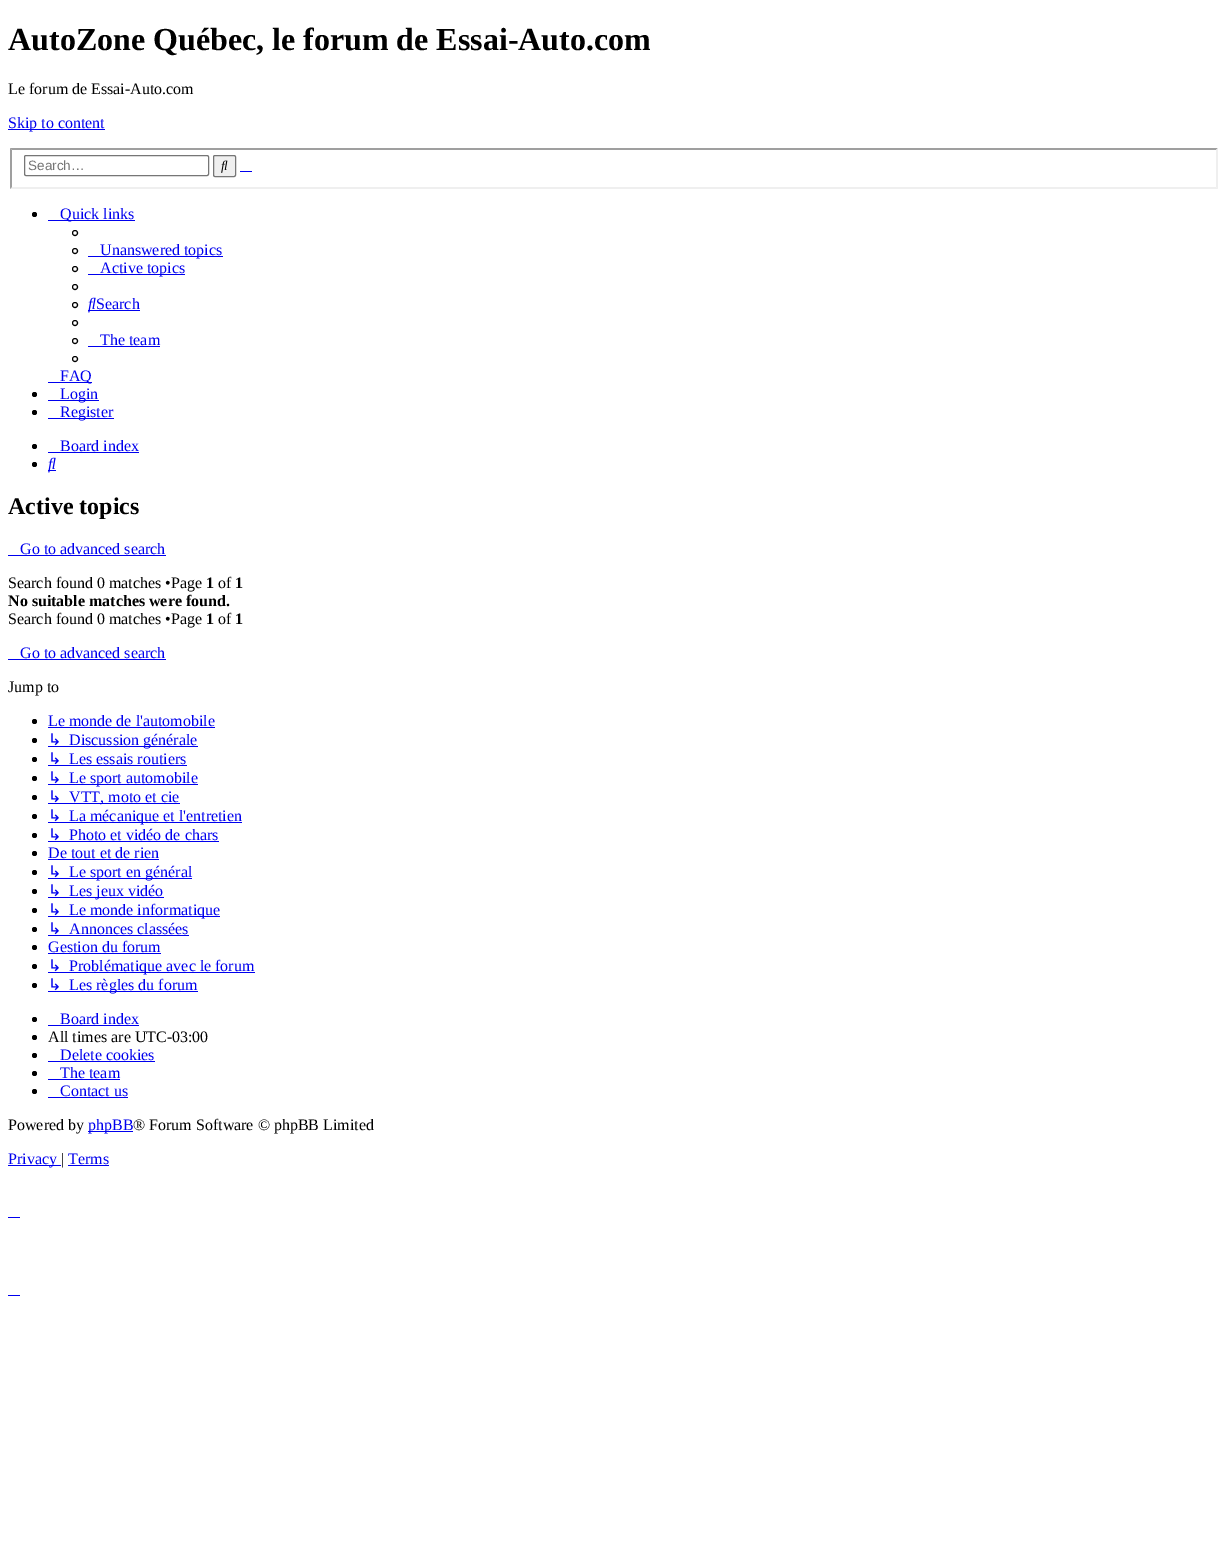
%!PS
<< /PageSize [1228 1553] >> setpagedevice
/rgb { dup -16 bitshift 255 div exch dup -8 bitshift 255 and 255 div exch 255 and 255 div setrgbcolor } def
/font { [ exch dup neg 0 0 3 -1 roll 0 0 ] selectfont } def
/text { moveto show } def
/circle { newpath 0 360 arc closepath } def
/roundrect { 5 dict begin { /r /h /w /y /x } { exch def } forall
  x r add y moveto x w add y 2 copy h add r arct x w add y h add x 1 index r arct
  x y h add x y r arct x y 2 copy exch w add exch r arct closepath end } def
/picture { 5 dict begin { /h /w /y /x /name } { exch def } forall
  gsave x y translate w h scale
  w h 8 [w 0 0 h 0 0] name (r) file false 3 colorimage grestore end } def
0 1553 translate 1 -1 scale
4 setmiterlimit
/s1 { /LiberationSerif-Bold 32 font 16#000000 rgb } def
/s2 { /LiberationSerif-Regular 16 font 16#000000 rgb } def
/s3 { /LiberationSerif-Regular 16 font 16#0000EE rgb } def
/s4 { /LiberationSans-Regular 13.5 font 16#757575 rgb } def
/s5 { /LiberationSerif-Bold 24 font 16#000000 rgb } def
/s6 { /LiberationSerif-Bold 16 font 16#000000 rgb } def
/s7 { /DejaVuSans-Regular 16 font 16#0000EE rgb } def
16#FFFFFF rgb
0 0 1228 1553 rectfill
s1
(AutoZone Québec, le forum de Essai-Auto.com) 8 50 text
s2
(Le forum de Essai-Auto.com) 8 94 text
16#0000EE rgb
8 129 97 1 rectfill
(Skip to content) 8 128 text
16#9F9F9F rgb
10 148 moveto 1218 148 lineto 1216 150 lineto 12 150 lineto closepath fill
16#EFEFEF rgb
1218 148 moveto 1218 189 lineto 1216 187 lineto 1216 150 lineto closepath fill
1218 189 moveto 10 189 lineto 12 187 lineto 1216 187 lineto closepath fill
16#9F9F9F rgb
10 189 moveto 10 148 lineto 12 150 lineto 12 187 lineto closepath fill
16#767676 rgb
24.5 155.5 184 20 1.5 roundrect stroke
s4
(Search…) 28 170 text
16#EFEFEF rgb
213.5 155.5 22 21 1.5 roundrect gsave fill grestore
16#767676 rgb
stroke
(pic1.raw) 221 160 7 13 picture
16#0000EE rgb
240 171 12 1 rectfill
16#000000 rgb
34.5 214.5 2.5 circle fill
16#0000EE rgb
48 220 87 1 rectfill
s3
(Quick links) 60 219 text
16#000000 rgb
75 233 2.5 circle stroke
75 251 2.5 circle stroke
16#0000EE rgb
88 256 135 1 rectfill
(Unanswered topics) 100 255 text
16#000000 rgb
75 269 2.5 circle stroke
16#0000EE rgb
88 274 97 1 rectfill
(Active topics) 100 273 text
16#000000 rgb
75 287 2.5 circle stroke
75 305 2.5 circle stroke
16#0000EE rgb
88 310 52 1 rectfill
(pic2.raw) 88 297 8 16 picture
(Search) 96 309 text
16#000000 rgb
75 323 2.5 circle stroke
75 341 2.5 circle stroke
s3
(The team) 100 345 text
88 346 72 1 rectfill
16#000000 rgb
75 359 2.5 circle stroke
16#0000EE rgb
48 382 44 1 rectfill
(FAQ) 60 381 text
16#000000 rgb
34.5 394.5 2.5 circle fill
16#0000EE rgb
48 400 51 1 rectfill
(Login) 60 399 text
16#000000 rgb
34.5 412.5 2.5 circle fill
16#0000EE rgb
48 418 66 1 rectfill
(Register) 60 417 text
16#000000 rgb
34.5 446.5 2.5 circle fill
s3
(Board index) 60 451 text
48 452 91 1 rectfill
16#000000 rgb
34.5 464.5 2.5 circle fill
16#0000EE rgb
48 470 8 1 rectfill
(pic2.raw) 48 457 8 16 picture
s5
(Active topics) 8 514 text
s3
(Go to advanced search) 20 554 text
8 555 158 1 rectfill
s2
(Search found 0 matches •Page) 8 588 text
s6
(1) 206 588 text
s2
(of) 218 588 text
s6
(1) 235 588 text
(No suitable matches were found.) 8 606 text
s2
(Search found 0 matches •Page) 8 624 text
s6
(1) 206 624 text
s2
(of) 218 624 text
s6
(1) 235 624 text
s3
(Go to advanced search) 20 658 text
8 659 158 1 rectfill
s2
(Jump to) 8 692 text
34.5 721.5 2.5 circle fill
s3
(Le monde de l'automobile) 48 726 text
48 727 167 1 rectfill
16#000000 rgb
34.5 740.5 2.5 circle fill
s7
(↳) 48 745 text
48 746 150 1 rectfill
s3
(Discussion générale) 69 745 text
16#000000 rgb
34.5 759.5 2.5 circle fill
s7
(↳) 48 764 text
s3
(Les essais routiers) 69 764 text
48 765 139 1 rectfill
16#000000 rgb
34.5 778.5 2.5 circle fill
s7
(↳) 48 783 text
48 784 150 1 rectfill
s3
(Le sport automobile) 69 783 text
16#000000 rgb
34.5 797.5 2.5 circle fill
s7
(↳) 48 802 text
48 803 132 1 rectfill
s3
(VTT, moto et cie) 69 802 text
16#000000 rgb
34.5 816.5 2.5 circle fill
s7
(↳) 48 821 text
48 822 194 1 rectfill
s3
(La mécanique et l'entretien) 69 821 text
16#000000 rgb
34.5 835.5 2.5 circle fill
s7
(↳) 48 840 text
48 841 171 1 rectfill
s3
(Photo et vidéo de chars) 69 840 text
16#000000 rgb
34.5 853.5 2.5 circle fill
s3
(De tout et de rien) 48 858 text
48 859 111 1 rectfill
16#000000 rgb
34.5 872.5 2.5 circle fill
s7
(↳) 48 877 text
48 878 144 1 rectfill
s3
(Le sport en général) 69 877 text
16#000000 rgb
34.5 891.5 2.5 circle fill
s7
(↳) 48 896 text
48 897 116 1 rectfill
s3
(Les jeux vidéo) 69 896 text
16#000000 rgb
34.5 910.5 2.5 circle fill
s7
(↳) 48 915 text
48 916 172 1 rectfill
s3
(Le monde informatique) 69 915 text
16#000000 rgb
34.5 929.5 2.5 circle fill
s7
(↳) 48 934 text
48 935 141 1 rectfill
s3
(Annonces classées) 69 934 text
16#000000 rgb
34.5 947.5 2.5 circle fill
s3
(Gestion du forum) 48 952 text
48 953 113 1 rectfill
16#000000 rgb
34.5 966.5 2.5 circle fill
s7
(↳) 48 971 text
48 972 207 1 rectfill
s3
(Problématique avec le forum) 69 971 text
16#000000 rgb
34.5 985.5 2.5 circle fill
s7
(↳) 48 990 text
48 991 150 1 rectfill
s3
(Les règles du forum) 69 990 text
16#000000 rgb
34.5 1019.5 2.5 circle fill
s3
(Board index) 60 1024 text
48 1025 91 1 rectfill
16#000000 rgb
34.5 1037.5 2.5 circle fill
(All times are UTC-03:00) 48 1042 text
34.5 1055.5 2.5 circle fill
s3
(Delete cookies) 60 1060 text
48 1061 107 1 rectfill
16#000000 rgb
34.5 1073.5 2.5 circle fill
s3
(The team) 60 1078 text
48 1079 72 1 rectfill
16#000000 rgb
34.5 1091.5 2.5 circle fill
s3
(Contact us) 60 1096 text
48 1097 80 1 rectfill
s2
(Powered by) 8 1130 text
16#0000EE rgb
88 1131 45 1 rectfill
(phpBB) 88 1130 text
s2
(® Forum Software © phpBB Limited) 133 1130 text
16#0000EE rgb
8 1165 53 1 rectfill
(Privacy) 8 1164 text
s2
(|) 61 1164 text
s3
(Terms) 68 1164 text
68 1165 41 1 rectfill
8 1217 12 1 rectfill
8 1295 12 1 rectfill
showpage
